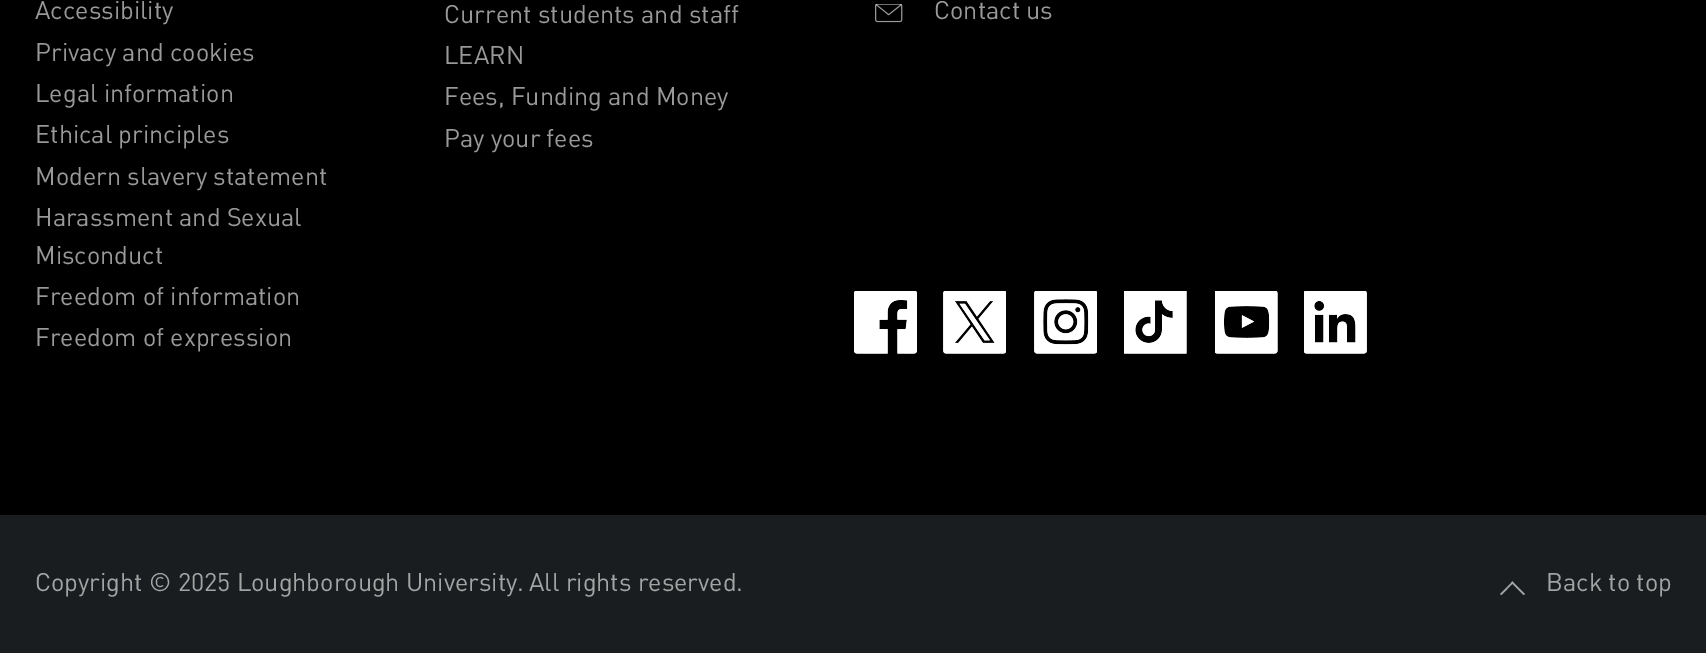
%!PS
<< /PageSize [1706 653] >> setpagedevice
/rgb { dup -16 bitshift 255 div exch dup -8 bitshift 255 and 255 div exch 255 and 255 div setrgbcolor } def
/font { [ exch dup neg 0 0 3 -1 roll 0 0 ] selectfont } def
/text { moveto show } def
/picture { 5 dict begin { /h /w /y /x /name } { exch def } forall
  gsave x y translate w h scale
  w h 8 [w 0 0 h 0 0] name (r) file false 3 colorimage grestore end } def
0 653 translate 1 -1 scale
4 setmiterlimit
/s1 { /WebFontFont-Regular 25.25 font 16#999999 rgb } def
/s2 { /WebFontFont-Regular 25.25 font 16#A3A5A5 rgb } def
16#000000 rgb
0 0 1706 653 rectfill
s1
(Accessibility) 35 19 text
(Privacy and cookies) 35 61 text
(Legal information) 35 102 text
(Ethical principles) 35 143 text
(Modern slavery statement) 35 185 text
(Harassment and Sexual) 35 226 text
(Misconduct) 35 264 text
(Freedom of information) 35 305 text
(Freedom of expression) 35 346 text
(Current students and staff) 444 23 text
(LEARN) 444 64 text
(Fees, Funding and Money) 444 105 text
(Pay your fees) 444 147 text
(pic1.raw) 875 4 28 19 picture
(Contact us) 934 19 text
(pic2.raw) 854 291 63 63 picture
(pic3.raw) 854 291 63 63 picture
(pic4.raw) 943 291 63 63 picture
(pic5.raw) 943 291 63 63 picture
(pic6.raw) 1034 291 63 63 picture
(pic7.raw) 1034 291 63 63 picture
(pic8.raw) 1124 291 63 63 picture
(pic9.raw) 1124 291 63 63 picture
(pic10.raw) 1215 291 63 63 picture
(pic11.raw) 1215 291 63 63 picture
(pic12.raw) 1304 291 63 63 picture
(pic13.raw) 1304 291 63 63 picture
16#191D1F rgb
0 515 1706 138 rectfill
s2
(Copyright © 2025 Loughborough University.) 35 591 text
(All rights reserved.) 529 591 text
1512.5 581.5 moveto 1525 594 lineto 1523.5 595 lineto 1511 582.5 lineto closepath fill
1512.5 581.5 moveto 1513.5 582.5 lineto 1501.5 595 lineto 1500 594 lineto closepath fill
(Back to top) 1546 591 text
showpage
